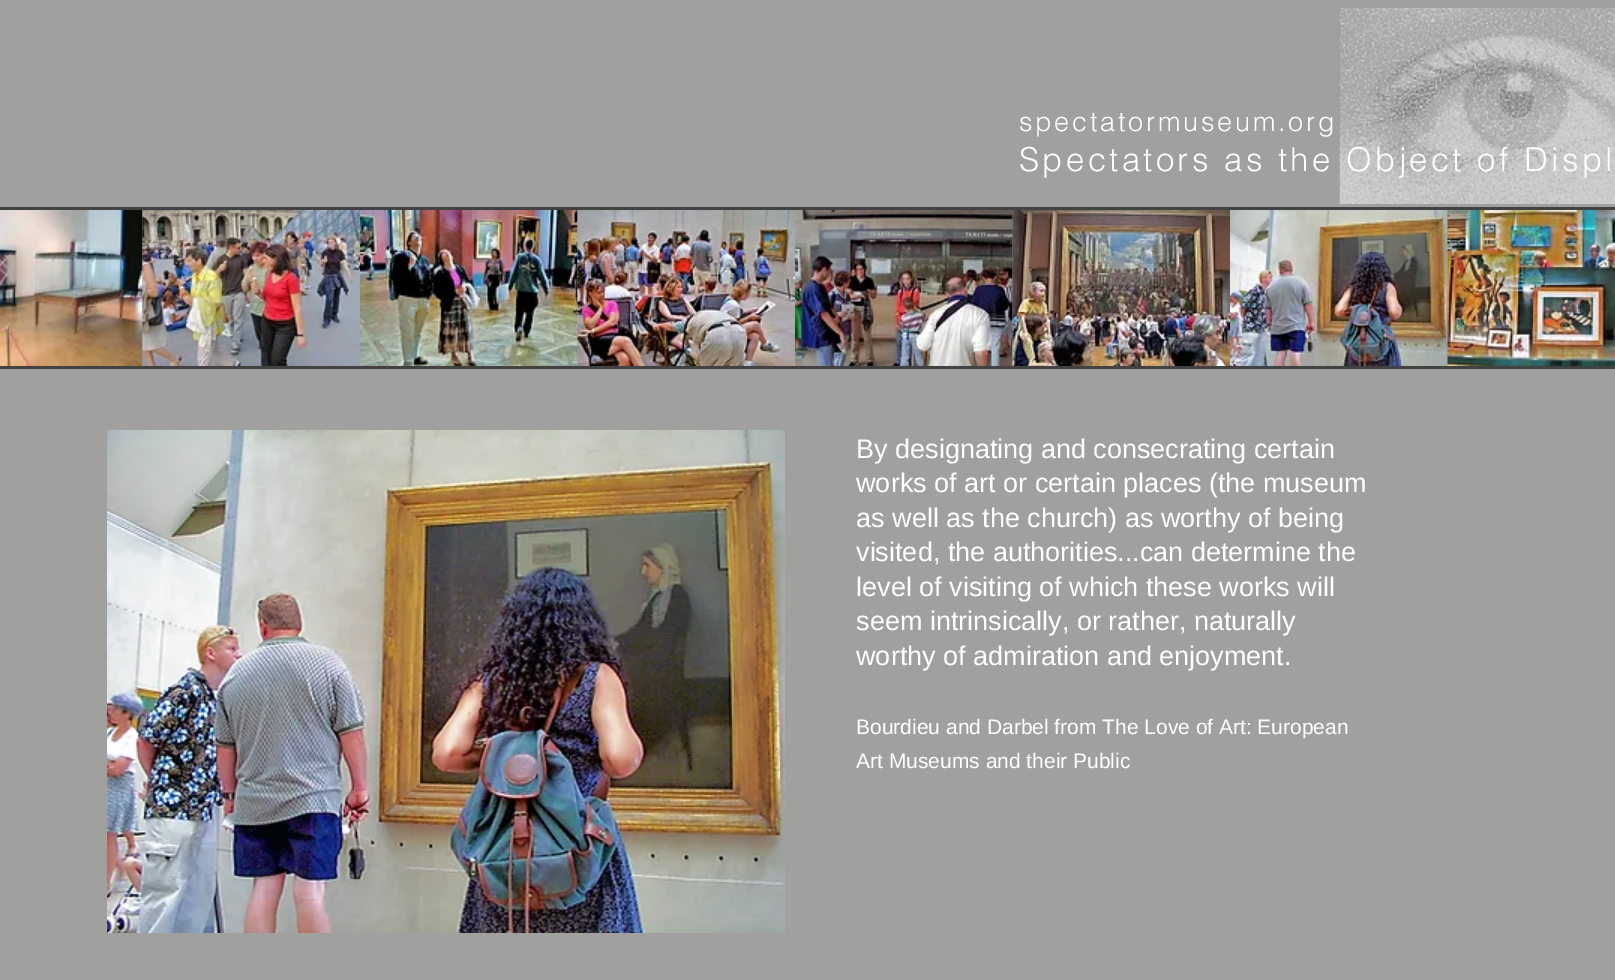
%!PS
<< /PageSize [1615 980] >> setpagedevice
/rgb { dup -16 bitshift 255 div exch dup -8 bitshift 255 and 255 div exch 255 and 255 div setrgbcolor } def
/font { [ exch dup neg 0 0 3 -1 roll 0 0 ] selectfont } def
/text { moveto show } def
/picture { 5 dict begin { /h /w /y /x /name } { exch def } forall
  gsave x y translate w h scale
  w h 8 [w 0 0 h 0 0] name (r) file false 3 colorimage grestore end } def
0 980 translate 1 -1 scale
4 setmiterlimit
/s1 { /LiberationSans-Regular 27 font 16#FFFFFF rgb } def
/s2 { /LiberationSans-Regular 21 font 16#FFFFFF rgb } def
16#A0A09F rgb
0 0 1615 980 rectfill
(pic1.raw) 1339 8 276 196 picture
/helvetica-Light 27 font
16#FFFFFF rgb
1019 131 moveto 2.75 0 (spectatormuseum.org) ashow
/helvetica-Light 33 font
1019 171 moveto 3.3 0 (Spectators as the Object of Displ) ashow
16#424242 rgb
0 207 1615 3 rectfill
(pic2.raw) 0 210 143 156 picture
(pic3.raw) 142 210 218 156 picture
(pic4.raw) 360 210 218 156 picture
(pic5.raw) 577 210 218 156 picture
(pic6.raw) 795 210 218 156 picture
(pic7.raw) 1012 210 218 156 picture
(pic8.raw) 1230 210 218 156 picture
(pic9.raw) 1447 210 168 156 picture
0 366 1615 3 rectfill
(pic10.raw) 107 430 678 503 picture
s1
(By designating and consecrating certain) 856 458 text
(works of art or certain places \(the museum) 856 492 text
(as well as the church\) as worthy of being) 856 527 text
(visited, the authorities...can determine the) 856 561 text
(level of visiting of which these works will) 856 596 text
(seem intrinsically, or rather, naturally) 856 630 text
(worthy of admiration and enjoyment.) 856 665 text
s2
(Bourdieu and Darbel from The Love of Art: European) 856 734 text
(Art Museums and their Public) 856 768 text
showpage
